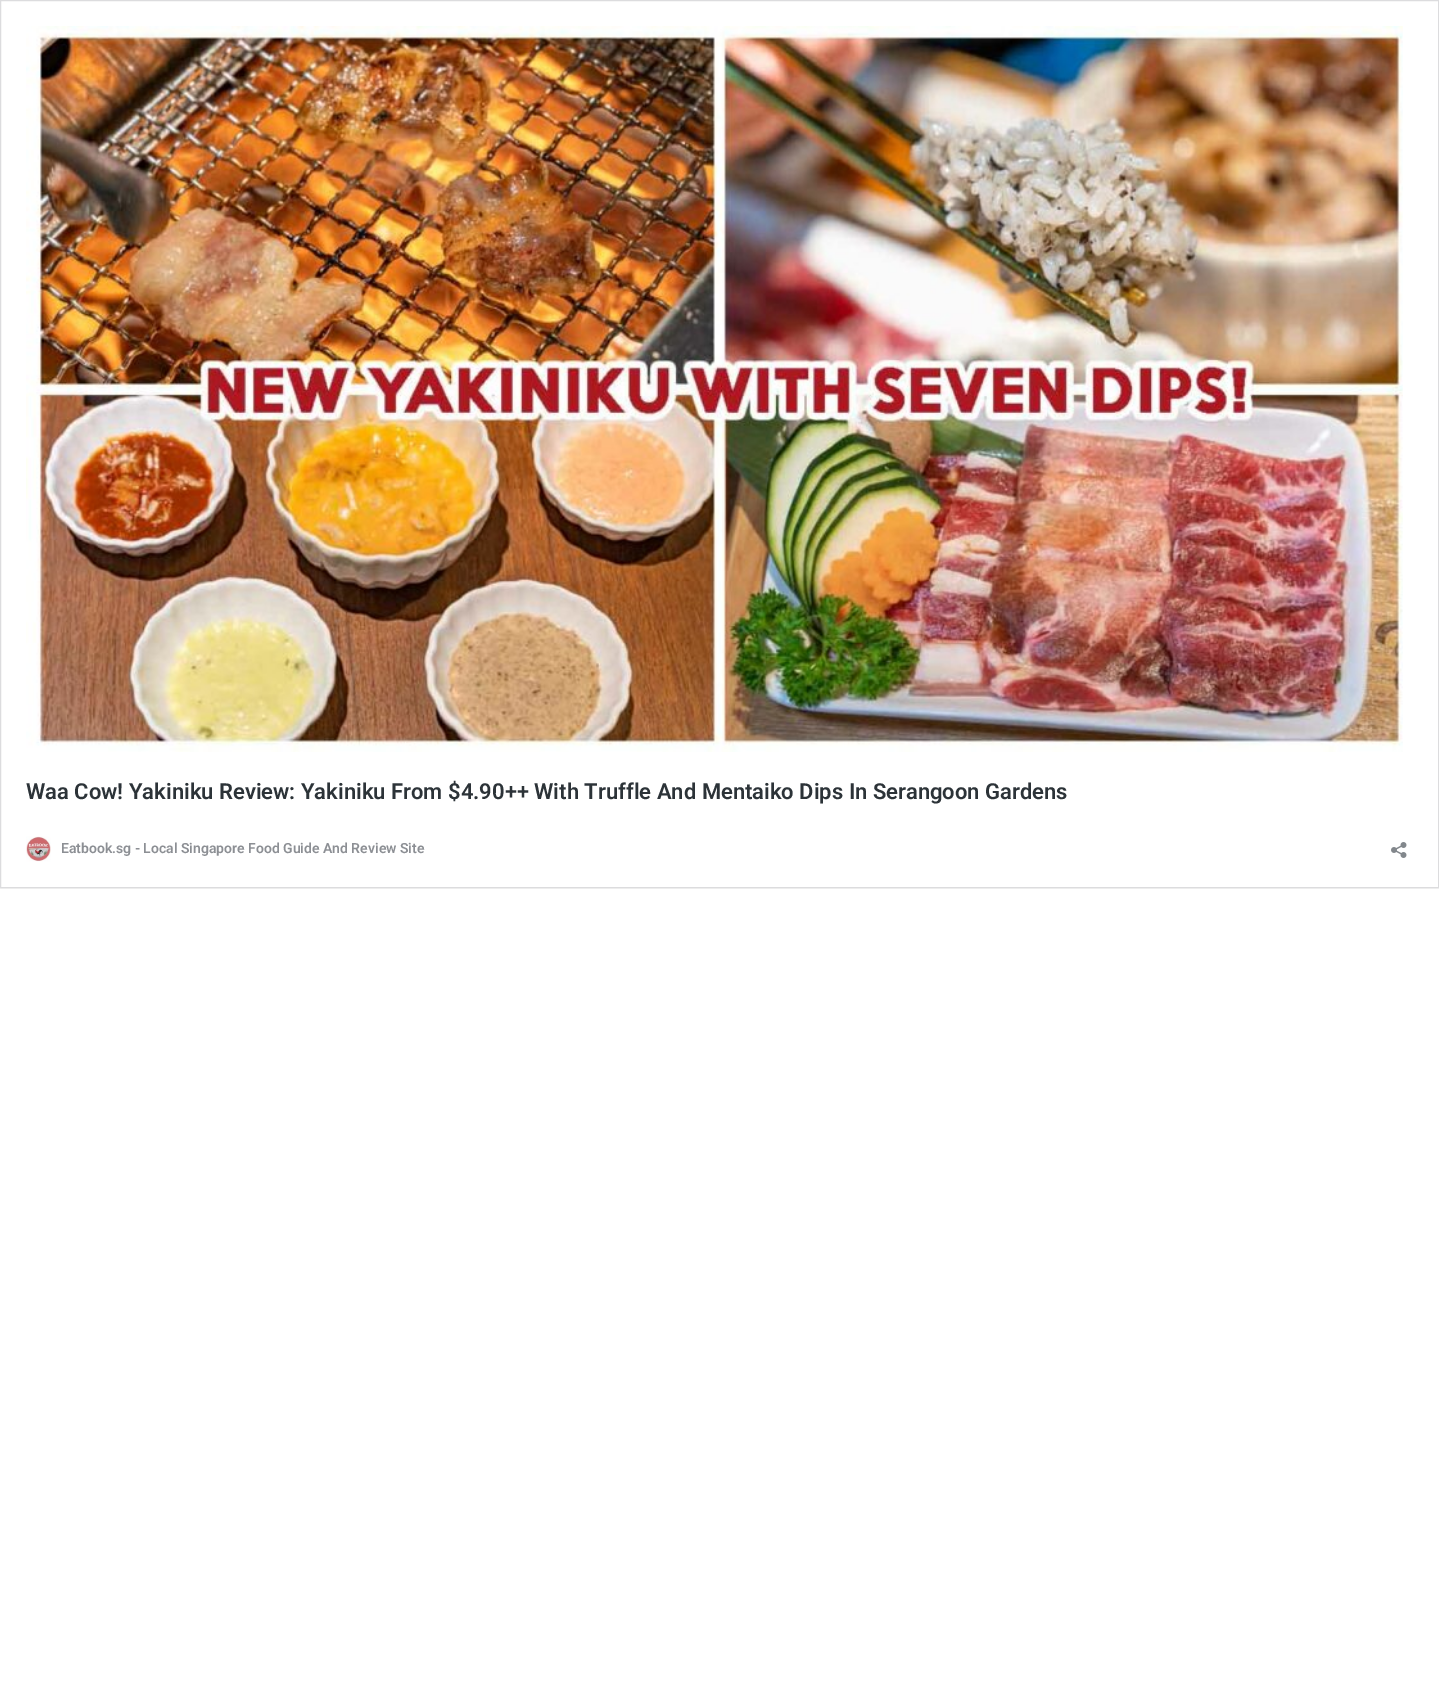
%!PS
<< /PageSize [1439 1703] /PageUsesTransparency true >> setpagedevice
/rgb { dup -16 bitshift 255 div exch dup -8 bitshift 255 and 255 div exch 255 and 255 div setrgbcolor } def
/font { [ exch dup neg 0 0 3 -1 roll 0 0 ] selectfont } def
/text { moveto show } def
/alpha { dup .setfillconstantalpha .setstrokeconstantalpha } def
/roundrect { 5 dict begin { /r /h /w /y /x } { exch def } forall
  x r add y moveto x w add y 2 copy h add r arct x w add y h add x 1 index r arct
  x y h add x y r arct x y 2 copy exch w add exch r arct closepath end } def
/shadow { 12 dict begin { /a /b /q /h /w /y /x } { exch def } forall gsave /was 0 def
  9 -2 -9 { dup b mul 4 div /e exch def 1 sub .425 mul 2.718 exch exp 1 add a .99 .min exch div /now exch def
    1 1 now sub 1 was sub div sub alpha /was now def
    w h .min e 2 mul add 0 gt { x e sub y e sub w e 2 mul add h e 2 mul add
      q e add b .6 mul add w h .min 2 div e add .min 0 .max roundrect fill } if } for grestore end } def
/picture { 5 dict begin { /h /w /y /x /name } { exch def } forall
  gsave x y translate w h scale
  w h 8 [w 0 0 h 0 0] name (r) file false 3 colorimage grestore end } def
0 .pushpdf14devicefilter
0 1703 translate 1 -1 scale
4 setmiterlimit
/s1 { /Roboto-SemiBold 22 font 16#2C3338 rgb } def
/s2 { /Roboto-SemiBold 14 font 16#8C8F94 rgb } def
16#FFFFFF rgb
0 0 1439 1703 rectfill
gsave
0 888 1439 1 rectclip
16#000000 rgb
0 1 1439 888 0 0.5 0.05 shadow
grestore
16#DCDCDE rgb
0.5 0.5 1438 887 rectstroke
(pic1.raw) 26 26 1377 726 picture
s1
(Waa Cow! Yakiniku Review: Yakiniku From $4.90++ With Truffle And Mentaiko Dips In Serangoon Gardens) 26 799 text
(pic2.raw) 26 836 25 26 picture
s2
(Eatbook.sg - Local Singapore Food Guide And Review Site) 61 853 text
(pic3.raw) 1391 842 16 16 picture
.poppdf14devicefilter showpage
